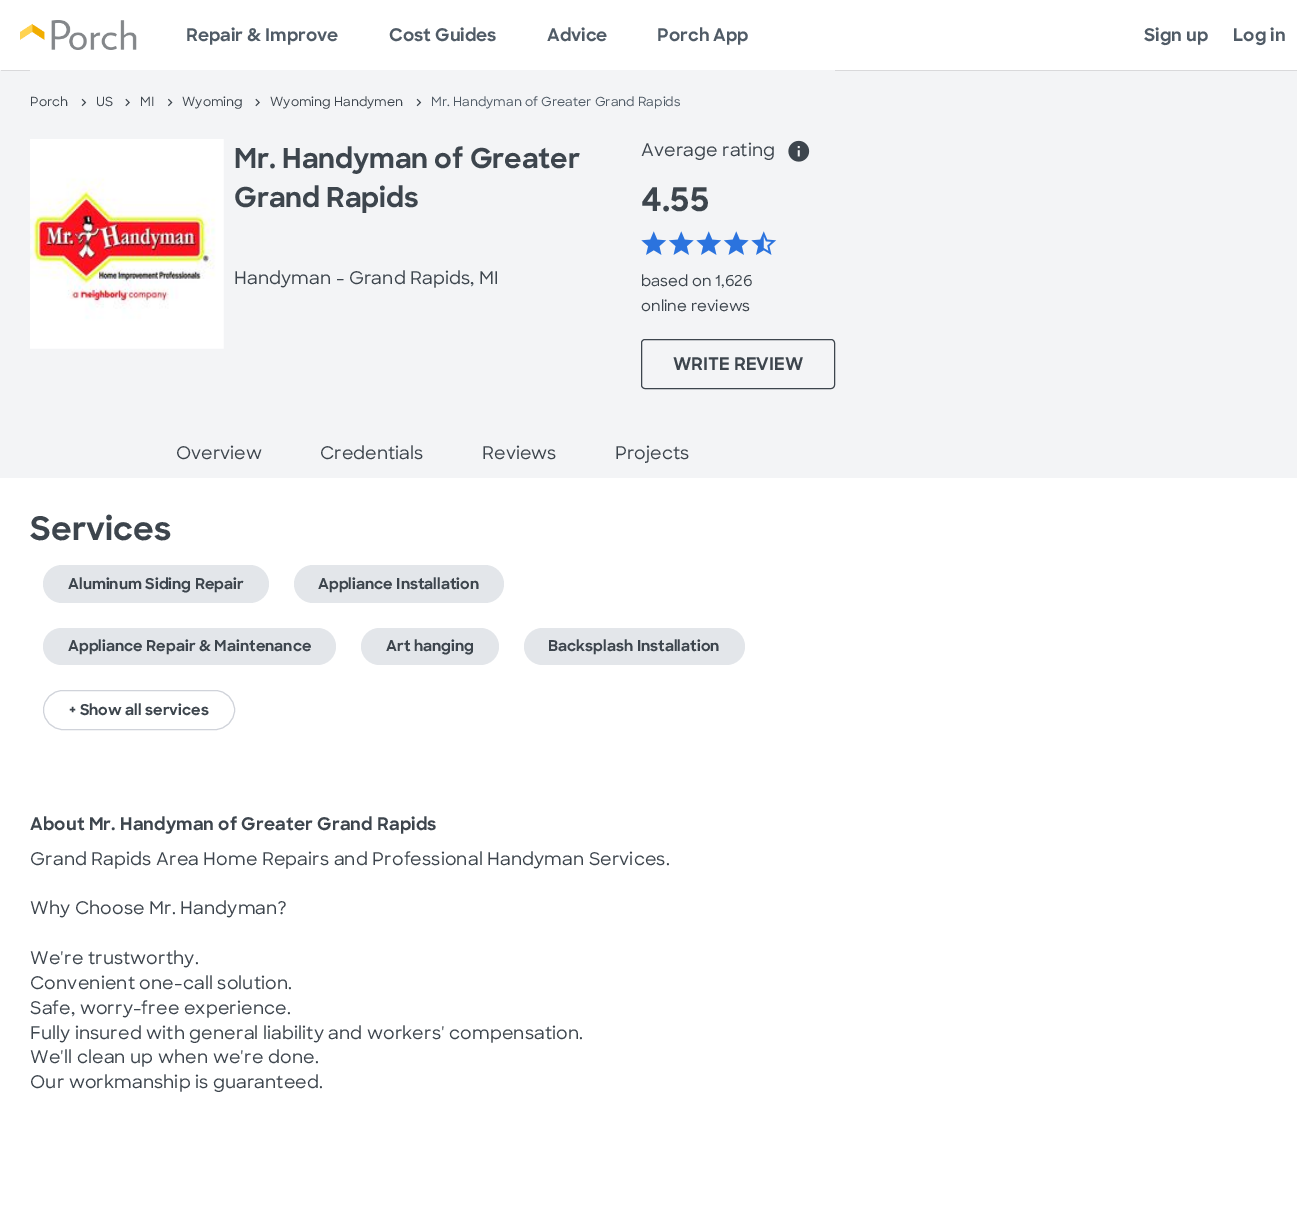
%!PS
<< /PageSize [1297 1228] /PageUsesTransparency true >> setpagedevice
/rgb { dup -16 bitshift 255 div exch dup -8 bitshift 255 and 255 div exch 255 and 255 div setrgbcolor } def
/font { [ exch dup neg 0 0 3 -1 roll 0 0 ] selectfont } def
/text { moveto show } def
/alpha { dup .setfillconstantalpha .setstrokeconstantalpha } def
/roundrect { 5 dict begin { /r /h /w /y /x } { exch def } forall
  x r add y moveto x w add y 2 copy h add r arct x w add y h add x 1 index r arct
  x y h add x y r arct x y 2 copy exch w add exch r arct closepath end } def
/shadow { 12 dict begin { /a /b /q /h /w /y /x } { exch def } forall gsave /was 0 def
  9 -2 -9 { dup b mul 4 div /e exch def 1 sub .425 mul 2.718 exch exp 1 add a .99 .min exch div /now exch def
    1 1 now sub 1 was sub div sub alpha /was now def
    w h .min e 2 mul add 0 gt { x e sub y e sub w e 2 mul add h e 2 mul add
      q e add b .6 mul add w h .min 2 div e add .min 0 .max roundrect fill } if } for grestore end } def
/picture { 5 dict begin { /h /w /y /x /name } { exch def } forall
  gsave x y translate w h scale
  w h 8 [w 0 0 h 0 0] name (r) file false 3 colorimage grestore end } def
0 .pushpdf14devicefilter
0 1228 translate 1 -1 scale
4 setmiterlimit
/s1 { /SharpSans-Bold 17.5 font 16#505B66 rgb } def
/s2 { /SharpSans-Medium 12.5 font 16#3D454D rgb } def
/s3 { /SharpSans-Medium 12.5 font 16#505B66 rgb } def
/s4 { /SharpSans-Medium 15 font 16#3D454D rgb } def
/s5 { /SharpSans-Bold 17.5 font 16#3D454D rgb } def
/s6 { /SharpSans-Medium 17.5 font 16#3D454D rgb } def
/s7 { /SharpSans-Bold 15 font 16#3D454D rgb } def
16#FFFFFF rgb
0 0 1297 1228 rectfill
16#F3F4F6 rgb
0 70 1297 408 rectfill
gsave
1 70 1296 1 rectclip
16#000000 rgb
1 0 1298 70 0 0.5 0.4 shadow
grestore
(pic1.raw) 20 20 117 30 picture
s1
(Repair & Improve) 186 41 text
(Cost Guides) 389 41 text
(Advice) 547 41 text
(Porch App) 657 41 text
(Sign up) 1144 41 text
(Log in) 1233 41 text
16#F3F4F6 rgb
30 70 805 1 rectfill
s2
(Porch) 30 106 text
(pic2.raw) 81 98 6 9 picture
(US) 96 106 text
(pic3.raw) 125 98 5 9 picture
(MI) 140 106 text
(pic4.raw) 168 98 5 9 picture
(Wyoming) 182 106 text
(pic3.raw) 255 98 5 9 picture
(Wyoming Handymen) 270 106 text
(pic2.raw) 416 98 6 9 picture
s3
(Mr. Handyman of Greater Grand Rapids) 431 106 text
(pic5.raw) 30 139 194 210 picture
/SharpSans-Bold 27.5 font
16#3D454D rgb
234 168 moveto -0.1 0 (Mr. Handyman of Greater) ashow
234 207 moveto -0.1 0 (Grand Rapids) ashow
/SharpSans-Medium 17.5 font
234 284 moveto 0.12 0 (Handyman - Grand Rapids, MI) ashow
641 156 moveto 0.12 0 (Average rating) ashow
(pic6.raw) 788 140 22 22 picture
/SharpSans-Bold 32.5 font
641 211 moveto 0.12 0 (4.55) ashow
(pic7.raw) 641 231 26 24 picture
(pic8.raw) 668 231 26 24 picture
(pic7.raw) 696 231 26 24 picture
(pic8.raw) 723 231 26 24 picture
(pic9.raw) 751 231 26 24 picture
s4
(based on 1,626) 641 286 text
(online reviews) 641 311 text
641.5 339.5 193 49 3.5 roundrect stroke
s5
(WRITE REVIEW) 673 370 text
s6
(Overview) 176 459 text
(Credentials) 320 459 text
(Reviews) 482 459 text
(Projects) 615 459 text
/SharpSans-Bold 32.5 font
30 540 moveto 0.12 0 (Services) ashow
16#E3E6EA rgb
43 565 226 38 19 roundrect fill
s7
(Aluminum Siding Repair) 68 589 text
16#E3E6EA rgb
294 565 210 38 19 roundrect fill
s7
(Appliance Installation) 318 589 text
16#E3E6EA rgb
43 628 293 37 18.5 roundrect fill
s7
(Appliance Repair & Maintenance) 68 651 text
16#E3E6EA rgb
361 628 138 37 18.5 roundrect fill
s7
(Art hanging) 386 651 text
16#E3E6EA rgb
524 628 221 37 18.5 roundrect fill
s7
(Backsplash Installation) 548 651 text
16#D0D3DA rgb
43.5 690.5 191 39 19.5 roundrect stroke
s7
(+ Show all services) 69 715 text
/SharpSans-Bold 17.5 font
30 830 moveto 0.12 0 (About Mr. Handyman of Greater Grand Rapids) ashow
/SharpSans-Medium 17.5 font
30 865 moveto 0.12 0 (Grand Rapids Area Home Repairs and Professional Handyman Services.) ashow
30 914 moveto 0.12 0 (Why Choose Mr. Handyman?) ashow
30 964 moveto 0.12 0 (We're trustworthy.) ashow
30 989 moveto 0.12 0 (Convenient one-call solution.) ashow
30 1014 moveto 0.12 0 (Safe, worry-free experience.) ashow
30 1039 moveto 0.12 0 (Fully insured with general liability and workers' compensation.) ashow
30 1063 moveto 0.12 0 (We'll clean up when we're done.) ashow
30 1088 moveto 0.12 0 (Our workmanship is guaranteed.) ashow
.poppdf14devicefilter showpage
